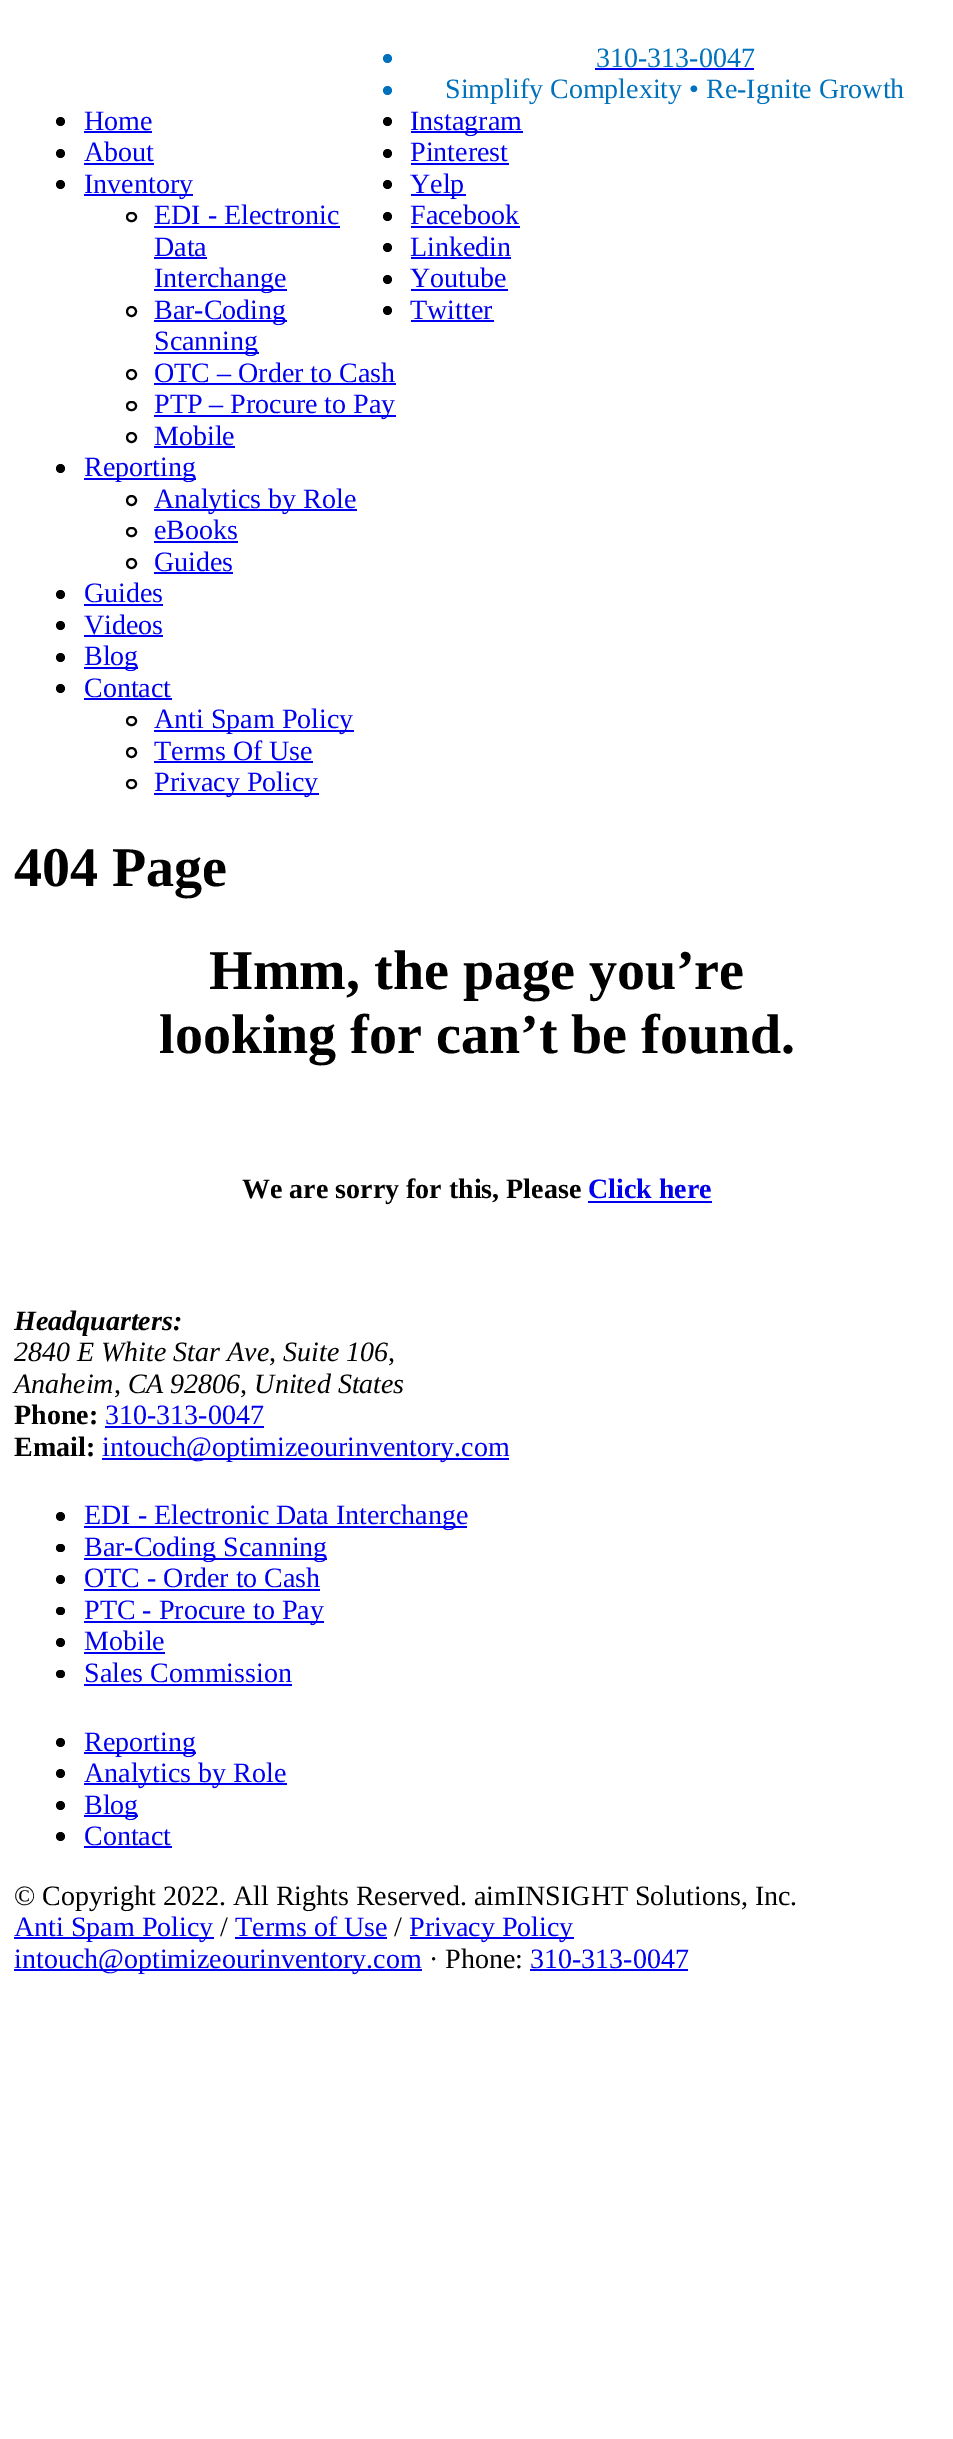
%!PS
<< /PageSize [953 2439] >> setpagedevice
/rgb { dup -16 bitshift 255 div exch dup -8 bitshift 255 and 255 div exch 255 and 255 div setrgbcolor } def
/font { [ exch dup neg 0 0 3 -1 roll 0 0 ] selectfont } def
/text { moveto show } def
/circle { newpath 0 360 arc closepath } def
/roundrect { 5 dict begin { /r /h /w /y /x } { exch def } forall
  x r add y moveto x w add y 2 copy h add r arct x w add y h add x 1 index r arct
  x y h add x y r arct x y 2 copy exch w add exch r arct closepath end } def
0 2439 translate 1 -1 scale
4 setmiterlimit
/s1 { /LiberationSerif-Regular 28 font 16#0000EE rgb } def
/s2 { /LiberationSerif-Regular 28 font 16#0071BC rgb } def
/s3 { /LiberationSerif-Bold 56 font 16#000000 rgb } def
/s4 { /LiberationSerif-Bold 28 font 16#000000 rgb } def
/s5 { /LiberationSerif-Bold 28 font 16#0000EE rgb } def
/s6 { /LiberationSerif-BoldItalic 28 font 16#000000 rgb } def
/s7 { /LiberationSerif-Italic 28 font 16#000000 rgb } def
/s8 { /LiberationSerif-Regular 28 font 16#000000 rgb } def
16#FFFFFF rgb
0 0 953 2439 rectfill
16#000000 rgb
60.5 121.5 4.5 circle fill
s1
(Home) 84 130 text
84 131 68 2 rectfill
16#000000 rgb
60.5 153.5 4.5 circle fill
s1
(About) 84 161 text
84 163 70 2 rectfill
16#000000 rgb
60.5 184.5 4.5 circle fill
16#0000EE rgb
84 194 109 2 rectfill
(Inventory) 84 193 text
16#000000 rgb
2 setlinewidth
127 213 9 8 4 roundrect stroke
s1
(EDI - Electronic) 154 224 text
154 226 186 2 rectfill
(Data) 154 256 text
154 257 53 2 rectfill
154 289 133 2 rectfill
(Interchange) 154 287 text
16#000000 rgb
131.5 311.5 4.5 circle stroke
16#0000EE rgb
154 320 133 2 rectfill
(Bar-Coding) 154 319 text
154 352 105 2 rectfill
(Scanning) 154 350 text
16#000000 rgb
131.5 374.5 4.5 circle stroke
s1
(OTC – Order to Cash) 154 382 text
154 383 242 2 rectfill
16#000000 rgb
127 402 9 8 4 roundrect stroke
16#0000EE rgb
154 415 242 2 rectfill
(PTP – Procure to Pay) 154 413 text
16#000000 rgb
131.5 437.5 4.5 circle stroke
s1
(Mobile) 154 445 text
154 446 81 2 rectfill
16#000000 rgb
60.5 468.5 4.5 circle fill
16#0000EE rgb
84 478 112 2 rectfill
(Reporting) 84 476 text
16#000000 rgb
131.5 500.5 4.5 circle stroke
16#0000EE rgb
154 509 203 2 rectfill
(Analytics by Role) 154 508 text
16#000000 rgb
127 528 9 8 4 roundrect stroke
s1
(eBooks) 154 539 text
154 541 84 2 rectfill
16#000000 rgb
131.5 563.5 4.5 circle stroke
s1
(Guides) 154 571 text
154 572 79 2 rectfill
16#000000 rgb
60.5 594.5 4.5 circle fill
s1
(Guides) 84 602 text
84 604 79 2 rectfill
16#000000 rgb
60.5 625.5 4.5 circle fill
s1
(Videos) 84 634 text
84 635 79 2 rectfill
16#000000 rgb
60.5 657.5 4.5 circle fill
16#0000EE rgb
84 667 54 2 rectfill
(Blog) 84 665 text
16#000000 rgb
60.5 688.5 4.5 circle fill
s1
(Contact) 84 697 text
84 698 88 2 rectfill
16#000000 rgb
127 717 9 8 4 roundrect stroke
16#0000EE rgb
154 730 200 2 rectfill
(Anti Spam Policy) 154 728 text
16#000000 rgb
131.5 752.5 4.5 circle stroke
s1
(Terms Of Use) 154 760 text
154 761 159 2 rectfill
16#000000 rgb
127 780 9 8 4 roundrect stroke
16#0000EE rgb
154 793 165 2 rectfill
(Privacy Policy) 154 791 text
16#0071BC rgb
387.5 58.5 4.5 circle fill
(310-313-0047) 596 67 text
16#0000EE rgb
595 68 159 2 rectfill
16#0071BC rgb
387.5 90.5 4.5 circle fill
(Simplify Complexity • Re-Ignite Growth) 445 98 text
16#000000 rgb
387.5 121.5 4.5 circle fill
16#0000EE rgb
411 131 112 2 rectfill
(Instagram) 410 130 text
16#000000 rgb
387.5 153.5 4.5 circle fill
s1
(Pinterest) 410 161 text
411 163 98 2 rectfill
16#000000 rgb
387.5 184.5 4.5 circle fill
16#0000EE rgb
411 194 55 2 rectfill
(Yelp) 410 193 text
16#000000 rgb
387.5 216.5 4.5 circle fill
s1
(Facebook) 410 224 text
411 226 109 2 rectfill
16#000000 rgb
387.5 247.5 4.5 circle fill
s1
(Linkedin) 410 256 text
411 257 100 2 rectfill
16#000000 rgb
387.5 279.5 4.5 circle fill
s1
(Youtube) 410 287 text
411 289 97 2 rectfill
16#000000 rgb
387.5 310.5 4.5 circle fill
s1
(Twitter) 410 319 text
411 320 83 2 rectfill
s3
(404 Page) 14 886 text
(Hmm, the page you’re) 209 989 text
(looking for can’t be found.) 159 1053 text
s4
(We are sorry for this, Please) 242 1198 text
s5
(Click here) 588 1198 text
588 1201 124 2 rectfill
s6
(Headquarters:) 14 1330 text
s7
(2840 E White Star Ave, Suite 106,) 14 1361 text
(Anaheim, CA 92806, United States) 14 1393 text
s4
(Phone:) 14 1424 text
s1
(310-313-0047) 105 1424 text
105 1426 159 2 rectfill
s4
(Email:) 14 1456 text
16#0000EE rgb
102 1458 407 2 rectfill
s1
(intouch@optimizeourinventory.com) 102 1456 text
16#000000 rgb
60.5 1516.5 4.5 circle fill
16#0000EE rgb
84 1526 383 2 rectfill
(EDI - Electronic Data Interchange) 84 1524 text
16#000000 rgb
56 1544 9 8 4 roundrect fill
16#0000EE rgb
84 1558 243 2 rectfill
(Bar-Coding Scanning) 84 1556 text
16#000000 rgb
60.5 1579.5 4.5 circle fill
s1
(OTC - Order to Cash) 84 1587 text
84 1589 236 2 rectfill
16#000000 rgb
56 1607 9 8 4 roundrect fill
16#0000EE rgb
84 1621 240 2 rectfill
(PTC - Procure to Pay) 84 1619 text
16#000000 rgb
60.5 1642.5 4.5 circle fill
s1
(Mobile) 84 1650 text
84 1652 81 2 rectfill
16#000000 rgb
56 1670 9 8 4 roundrect fill
s1
(Sales Commission) 84 1682 text
84 1684 208 2 rectfill
16#000000 rgb
60.5 1742.5 4.5 circle fill
16#0000EE rgb
84 1752 112 2 rectfill
(Reporting) 84 1751 text
16#000000 rgb
60.5 1773.5 4.5 circle fill
16#0000EE rgb
84 1783 203 2 rectfill
(Analytics by Role) 84 1782 text
16#000000 rgb
60.5 1805.5 4.5 circle fill
16#0000EE rgb
84 1815 54 2 rectfill
(Blog) 84 1814 text
16#000000 rgb
60.5 1836.5 4.5 circle fill
s1
(Contact) 84 1845 text
84 1846 88 2 rectfill
s8
(© Copyright 2022. All Rights Reserved. aimINSIGHT Solutions, Inc.) 14 1905 text
16#0000EE rgb
14 1937 200 2 rectfill
(Anti Spam Policy) 14 1936 text
s8
(/) 220 1936 text
s1
(Terms of Use) 235 1936 text
235 1937 152 2 rectfill
s8
(/) 394 1936 text
16#0000EE rgb
410 1937 164 2 rectfill
(Privacy Policy) 409 1936 text
14 1969 408 2 rectfill
(intouch@optimizeourinventory.com) 14 1968 text
s8
(· Phone:) 429 1968 text
s1
(310-313-0047) 530 1968 text
530 1969 158 2 rectfill
showpage
